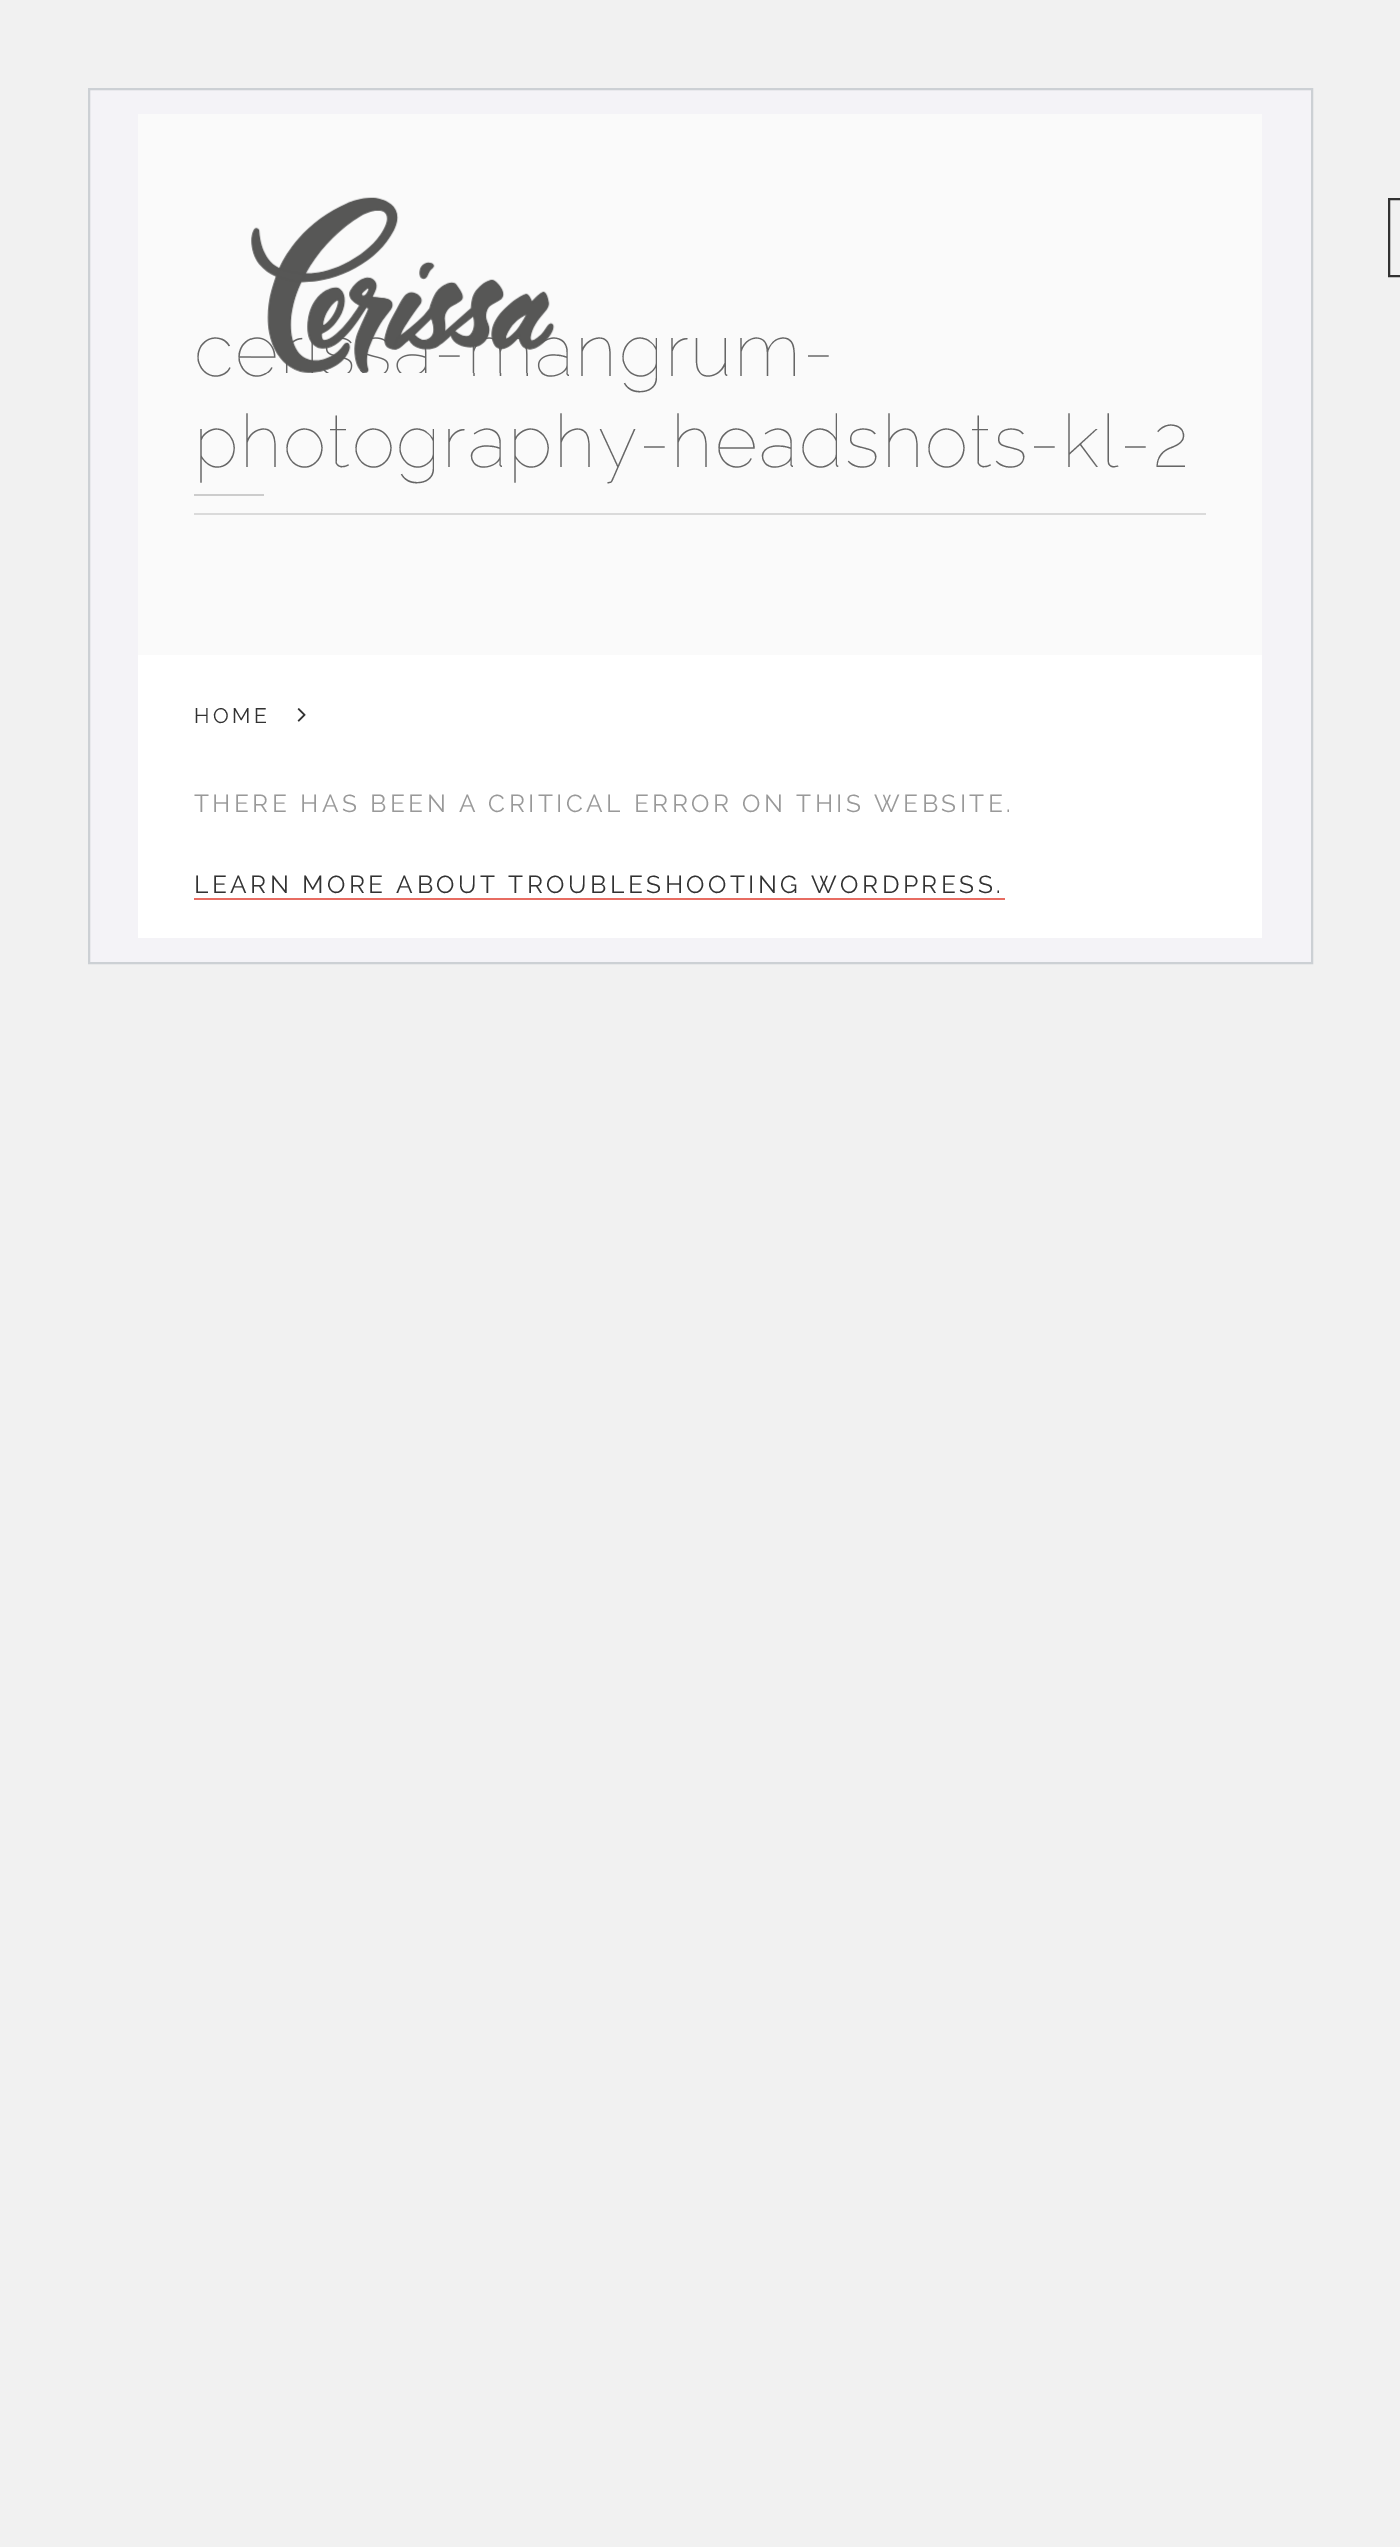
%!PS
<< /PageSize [1400 2547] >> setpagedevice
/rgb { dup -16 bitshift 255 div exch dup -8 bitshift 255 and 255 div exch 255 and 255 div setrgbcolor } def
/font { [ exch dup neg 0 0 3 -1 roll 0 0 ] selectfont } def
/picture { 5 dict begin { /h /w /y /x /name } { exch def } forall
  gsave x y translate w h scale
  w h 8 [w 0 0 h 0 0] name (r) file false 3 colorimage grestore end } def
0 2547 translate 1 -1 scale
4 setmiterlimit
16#F1F1F1 rgb
0 0 1400 2547 rectfill
16#F4F3F7 rgb
89 89 moveto 1312 89 lineto 1312 963 lineto 89 963 lineto closepath gsave fill grestore
16#CCD0D4 rgb
2 setlinewidth
stroke
16#FFFFFF rgb
138 655 1124 283 rectfill
16#FAFAFA rgb
138 114 1124 541 rectfill
/Raleway-Thin 73.5 font
16#666666 rgb
194 376 moveto 1.75 0 (ce) ashow
434 376 moveto 1.75 0 (-mangrum-) ashow
(pic1.raw) 251 197 304 176 picture
16#323232 rgb
1389 199 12 77 rectstroke
16#DADADA rgb
194 513 1012 2 rectfill
16#666666 rgb
194 467 moveto 1.75 0 (photography-headshots-kl-2) ashow
16#CCCCCC rgb
194 494 70 2 rectfill
/Raleway-Regular 21 font
16#323232 rgb
194 723 moveto 3.5 0 (HOME) ashow
(pic2.raw) 297 708 9 14 picture
/Raleway-Regular 24.5 font
16#999999 rgb
194 812 moveto 3.5 0 (THERE HAS BEEN A CRITICAL ERROR ON THIS WEBSITE.) ashow
16#323232 rgb
194 893 moveto 3.5 0 (LEARN MORE ABOUT TROUBLESHOOTING WORDPRESS.) ashow
16#E76C62 rgb
194 898 811 2 rectfill
showpage
